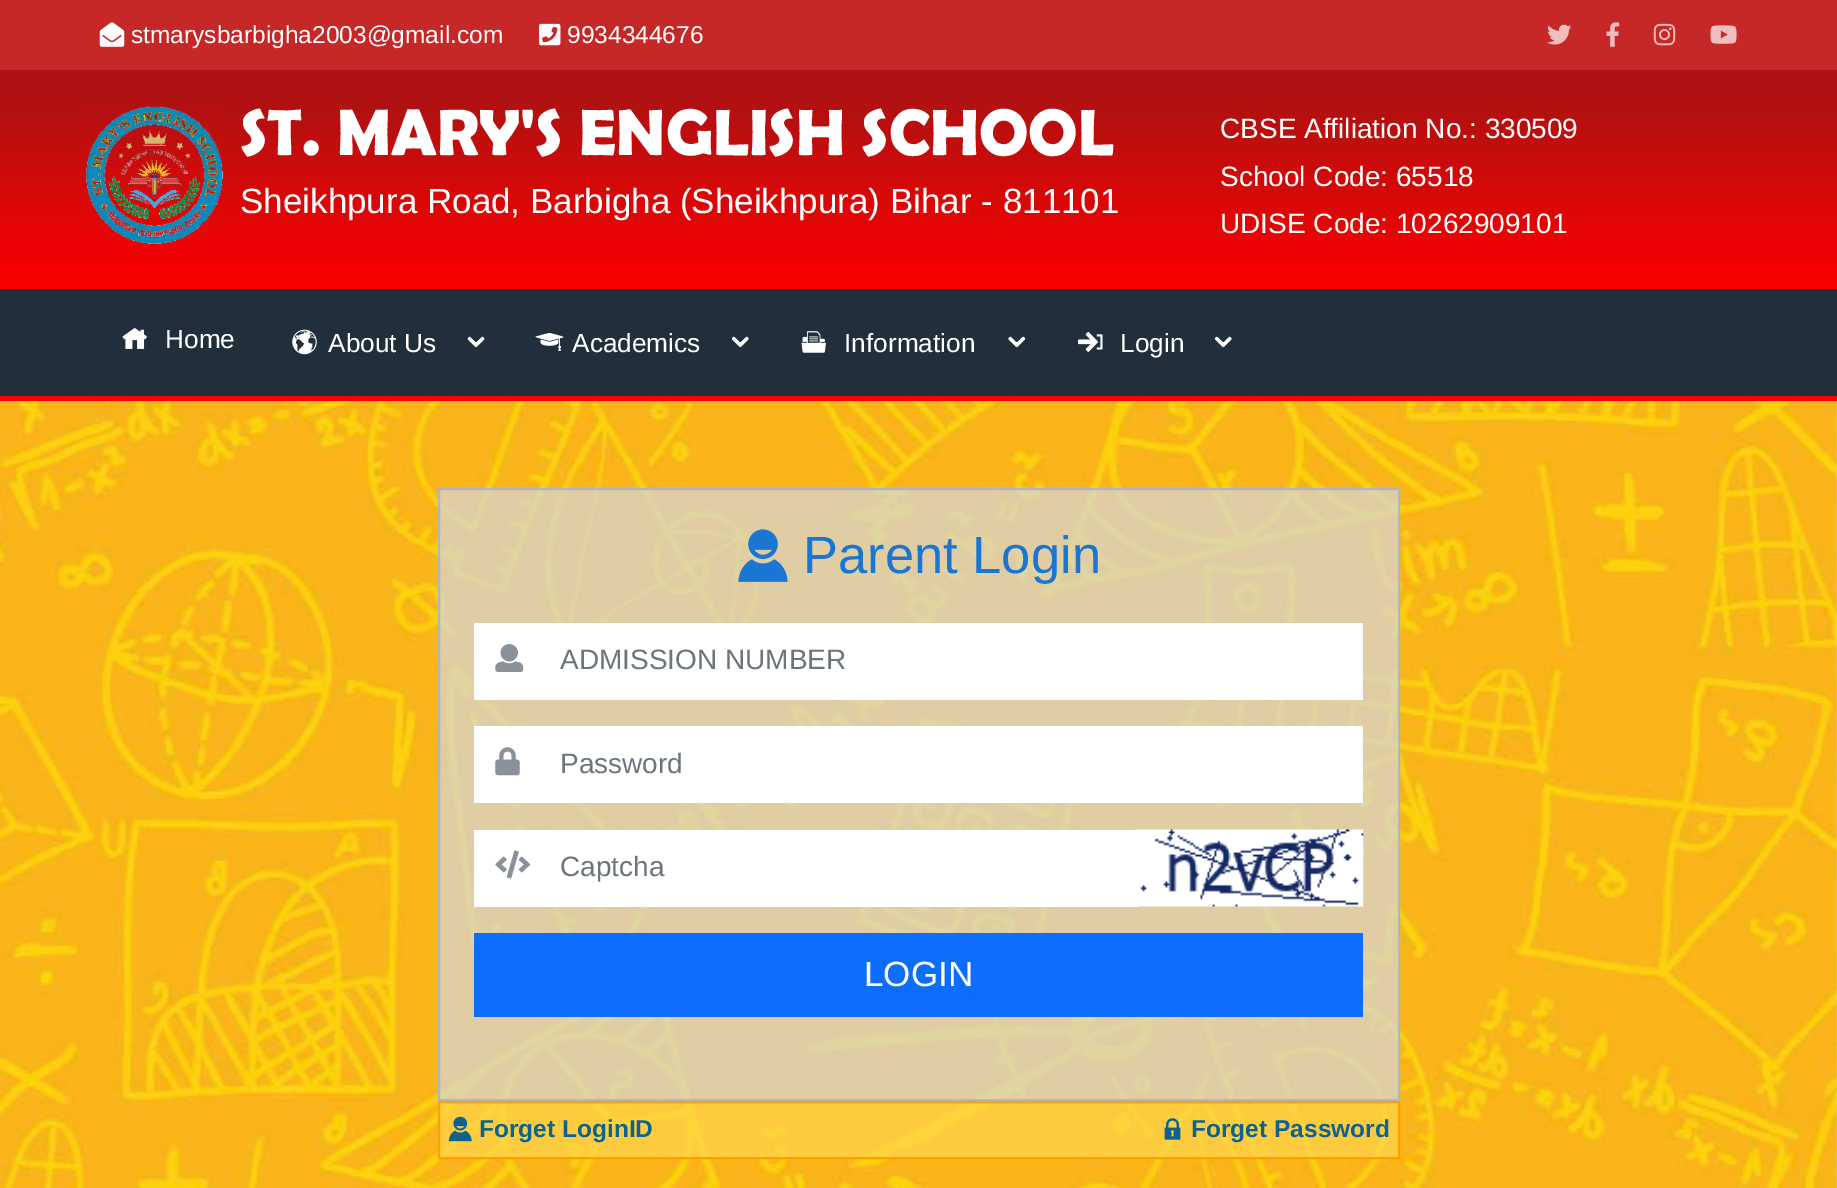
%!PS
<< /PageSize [1837 1188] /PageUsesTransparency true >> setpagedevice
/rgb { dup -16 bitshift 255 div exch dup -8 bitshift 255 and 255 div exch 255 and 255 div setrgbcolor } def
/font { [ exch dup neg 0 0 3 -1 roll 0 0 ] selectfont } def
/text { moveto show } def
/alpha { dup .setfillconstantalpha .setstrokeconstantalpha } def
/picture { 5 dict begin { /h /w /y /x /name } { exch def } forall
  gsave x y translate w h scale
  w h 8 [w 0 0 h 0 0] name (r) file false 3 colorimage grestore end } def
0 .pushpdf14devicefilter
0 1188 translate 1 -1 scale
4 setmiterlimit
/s1 { /LiberationSans-Regular 24.5 font 16#FFFFFF rgb } def
/s2 { /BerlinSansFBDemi-SemiBold 66 font 16#FFFFFF rgb } def
/s3 { /LiberationSans-Regular 35 font 16#FFFFFF rgb } def
/s4 { /LiberationSans-Regular 28 font 16#FFFFFF rgb } def
/s5 { /LiberationSans-Regular 26.25 font 16#FFFFFF rgb } def
/s6 { /LiberationSans-Regular 52.5 font 16#1976D2 rgb } def
/s7 { /LiberationSans-Regular 28 font 16#6C757D rgb } def
/s8 { /LiberationSans-Bold 24.5 font 16#0D638F rgb } def
16#FFFFFF rgb
0 0 1837 1188 rectfill
16#C62828 rgb
0 0 1837 70 rectfill
(pic1.raw) 99 22 26 25 picture
s1
(stmarysbarbigha2003@gmail.com) 131 43 text
(pic2.raw) 539 23 22 23 picture
(9934344676) 567 43 text
(pic3.raw) 1547 24 25 21 picture
(pic4.raw) 1606 22 14 25 picture
(pic5.raw) 1653 23 23 23 picture
(pic6.raw) 1710 25 27 19 picture
gsave 0 70 moveto 1837 70 lineto 1837 289 lineto 0 289 lineto closepath clip newpath
<< /ShadingType 2 /ColorSpace /DeviceRGB /Coords [919 289 919 70] /Extend [true true] /Function << /FunctionType 3 /Domain [0 1] /Functions [<< /FunctionType 2 /Domain [0 1] /C0 [0.984 0 0] /C1 [0.984 0 0] /N 1 >> << /FunctionType 2 /Domain [0 1] /C0 [0.984 0 0] /C1 [0.686 0.071 0.071] /N 1 >> << /FunctionType 2 /Domain [0 1] /C0 [0.686 0.071 0.071] /C1 [0.686 0.071 0.071] /N 1 >>] /Bounds [0.02 0.88] /Encode [0 1 0 1 0 1] >> >> shfill grestore
(pic7.raw) 86 106 137 138 picture
s2
(ST. MARY'S ENGLISH SCHOOL) 240 155 text
s3
(Sheikhpura Road, Barbigha \(Sheikhpura\) Bihar - 811101) 240 213 text
s4
(CBSE Affiliation No.: 330509) 1220 138 text
(School Code: 65518) 1220 186 text
(UDISE Code: 10262909101) 1220 233 text
16#212F3D rgb
0 289 1837 107 rectfill
16#FF0000 rgb
0 396 1837 5 rectfill
(pic8.raw) 122 328 25 21 picture
s5
(Home) 165 348 text
(pic9.raw) 292 329 25 26 picture
(About Us) 328 352 text
(pic10.raw) 467 336 18 12 picture
(pic11.raw) 535 333 29 18 picture
(Academics) 572 352 text
(pic12.raw) 731 336 18 12 picture
(pic13.raw) 801 331 25 22 picture
(Information) 844 352 text
(pic14.raw) 1008 336 18 12 picture
(pic15.raw) 1078 332 25 20 picture
(Login) 1120 352 text
(pic12.raw) 1214 336 18 12 picture
(pic16.raw) 0 401 1837 787 picture
0.7 alpha
16#D5D7DE rgb
439 489 moveto 1399 489 lineto 1399 1100 lineto 439 1100 lineto closepath fill
1 alpha
16#B0B6BE rgb
2 setlinewidth
439 489 moveto 1399 489 lineto 1399 1100 lineto 439 1100 lineto closepath stroke
(pic17.raw) 738 529 50 53 picture
s6
(Parent Login) 803 573 text
16#FFFFFF rgb
474 623 889 77 rectfill
(pic18.raw) 495 644 29 28 picture
s7
(ADMISSION NUMBER) 560 669 text
16#FFFFFF rgb
474 726 889 77 rectfill
(pic19.raw) 495 747 25 29 picture
s7
(Password) 560 773 text
16#FFFFFF rgb
474 830 69 77 rectfill
(pic20.raw) 495 850 36 29 picture
(pic21.raw) 1135 829 229 78 picture
543 830 595 77 rectfill
s7
(Captcha) 560 876 text
16#0D6EFD rgb
474 933 889 84 rectfill
s3
(LOGIN) 864 986 text
0.7 alpha
16#FFD54F rgb
439 1102 moveto 1399 1102 lineto 1399 1158 lineto 439 1158 lineto closepath fill
1 alpha
16#FFA000 rgb
439 1102 moveto 1399 1102 lineto 1399 1158 lineto 439 1158 lineto closepath stroke
(pic22.raw) 448 1116 24 26 picture
s8
(Forget LoginID) 479 1137 text
(pic23.raw) 1164 1118 17 22 picture
(Forget Password) 1191 1137 text
.poppdf14devicefilter showpage
